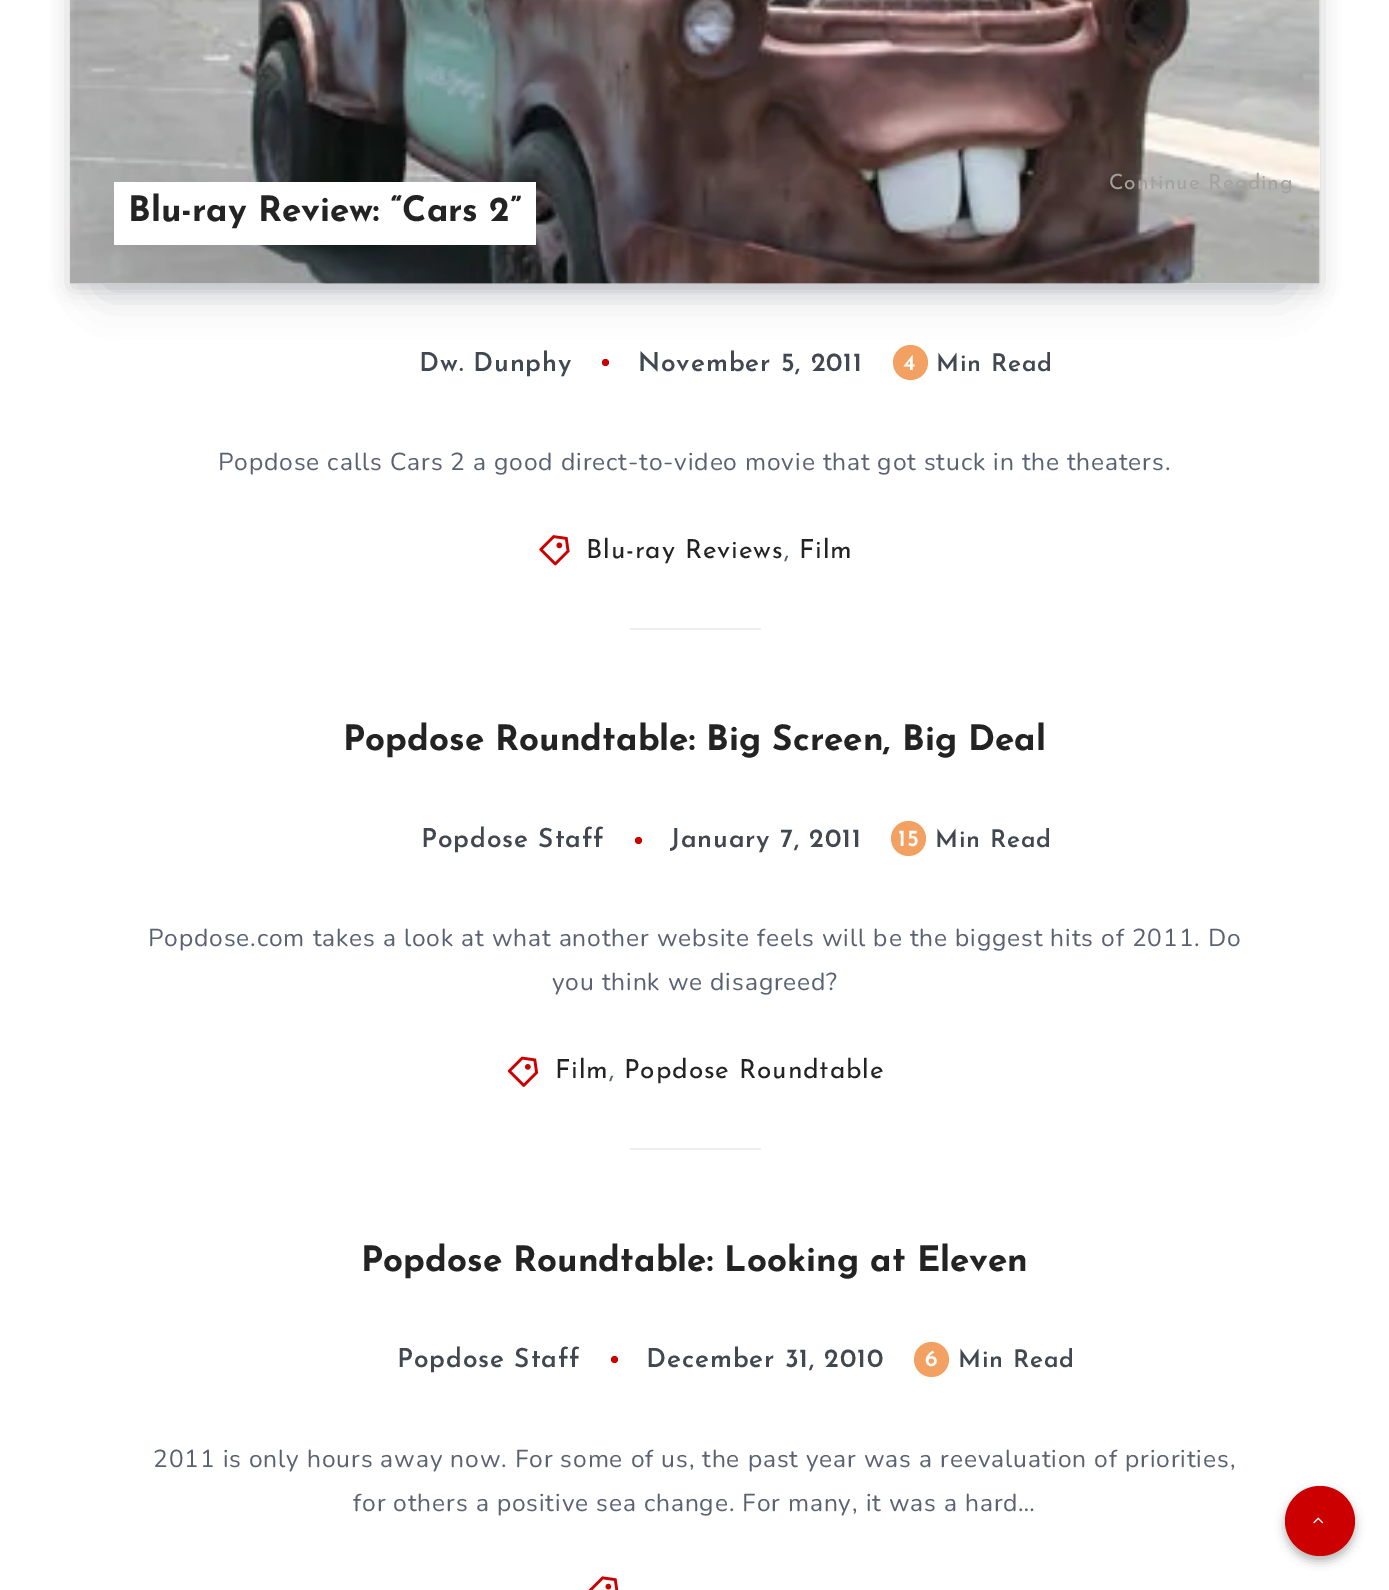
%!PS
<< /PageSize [1389 1590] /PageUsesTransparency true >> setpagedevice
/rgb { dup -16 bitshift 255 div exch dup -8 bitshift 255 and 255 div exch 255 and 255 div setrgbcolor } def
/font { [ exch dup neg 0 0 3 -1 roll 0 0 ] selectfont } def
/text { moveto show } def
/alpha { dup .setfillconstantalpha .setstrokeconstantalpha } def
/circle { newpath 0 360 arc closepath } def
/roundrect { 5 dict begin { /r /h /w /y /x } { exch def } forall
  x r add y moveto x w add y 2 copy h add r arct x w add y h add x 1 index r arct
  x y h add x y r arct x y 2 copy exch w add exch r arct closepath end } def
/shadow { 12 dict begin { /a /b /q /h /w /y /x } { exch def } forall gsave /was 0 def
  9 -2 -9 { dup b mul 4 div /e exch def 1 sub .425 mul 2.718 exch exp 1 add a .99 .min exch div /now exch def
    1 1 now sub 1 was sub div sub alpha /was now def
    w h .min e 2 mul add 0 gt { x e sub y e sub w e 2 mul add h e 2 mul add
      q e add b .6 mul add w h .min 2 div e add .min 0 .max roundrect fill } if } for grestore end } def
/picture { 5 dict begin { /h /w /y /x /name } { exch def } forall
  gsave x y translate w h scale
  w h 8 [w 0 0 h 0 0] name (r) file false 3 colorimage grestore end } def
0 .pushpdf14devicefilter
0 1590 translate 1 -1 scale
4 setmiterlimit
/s1 { /JosefinSans-Bold 35 font 16#242323 rgb } def
16#FFFFFF rgb
0 0 1389 1590 rectfill
16#F2A163 rgb
910.5 362.5 17.5 circle fill
16#070A19 rgb
105 -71 1180 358 0 23.5 0.2 shadow
72 -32 1246 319 0 10.5 0.2 shadow
gsave 70 283 moveto 695 283 lineto 695 284 lineto 70 284 lineto closepath clip newpath
<< /ShadingType 2 /ColorSpace /DeviceRGB /Coords [70 -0.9 695 -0.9] /Extend [true true] /Function << /FunctionType 3 /Domain [0 1] /Functions [<< /FunctionType 2 /Domain [0 1] /C0 [0.973 0.973 0.973] /C1 [0.953 0.953 0.953] /N 1 >> << /FunctionType 2 /Domain [0 1] /C0 [0.953 0.953 0.953] /C1 [0.973 0.973 0.973] /N 1 >>] /Bounds [0.5] /Encode [0 1 0 1] >> >> shfill grestore
16#F9F9F9 rgb
695 0 625 284 rectfill
(pic1.raw) 70 0 1250 284 picture
/JosefinSans-Regular 21 font
16#A4A29E rgb
1109 189 moveto 0.88 0 (Continue Reading) ashow
16#FFFFFF rgb
114 182 422 63 rectfill
s1
(Blu-ray Review: “Cars 2”) 128 221 text
/JosefinSans-SemiBold 26.25 font
16#424851 rgb
419 371 moveto 0.88 0 (Dw. Dunphy) ashow
16#CC0000 rgb
605.5 362.5 3.5 circle fill
16#424851 rgb
638 371 moveto 0.88 0 (November 5, 2011) ashow
/JosefinSans-SemiBold 23 font
16#FFFFFF rgb
903 370 moveto 0.88 0 (4) ashow
/JosefinSans-SemiBold 24.5 font
16#424851 rgb
936 371 moveto 0.88 0 (Min Read) ashow
/Nunito-Regular 24.5 font
16#596172 rgb
218 470 moveto 0.88 0 (Popdose calls Cars 2 a good direct-to-video movie that got stuck in the theaters.) ashow
(pic2.raw) 539 535 31 31 picture
/JosefinSans-Regular 26.25 font
16#242323 rgb
586 558 moveto 0.88 0 (Blu-ray Reviews) ashow
16#596172 rgb
784 558 moveto 0.88 0 (,) ashow
16#242323 rgb
799 558 moveto 0.88 0 (Film) ashow
16#EEEEEE rgb
630 628 131 2 rectfill
s1
(Popdose Roundtable: Big Screen, Big Deal) 343 750 text
/JosefinSans-SemiBold 26.25 font
16#424851 rgb
421 847 moveto 0.88 0 (Popdose Staff) ashow
16#CC0000 rgb
638.5 840.5 3.5 circle fill
16#424851 rgb
670 847 moveto 0.88 0 (January 7, 2011) ashow
16#F2A163 rgb
908.5 838.5 17.5 circle fill
/JosefinSans-SemiBold 23 font
16#FFFFFF rgb
898 846 moveto 0.88 0 (15) ashow
/JosefinSans-SemiBold 24.5 font
16#424851 rgb
935 847 moveto 0.88 0 (Min Read) ashow
/Nunito-Regular 24.5 font
16#596172 rgb
148 946 moveto 0.88 0 (Popdose.com takes a look at what another website feels will be the biggest hits of 2011. Do) ashow
552 990 moveto 0.88 0 (you think we disagreed?) ashow
(pic3.raw) 507 1056 32 31 picture
/JosefinSans-Regular 26.25 font
16#242323 rgb
555 1078 moveto 0.88 0 (Film) ashow
16#596172 rgb
609 1078 moveto 0.88 0 (,) ashow
16#242323 rgb
624 1078 moveto 0.88 0 (Popdose Roundtable) ashow
16#EEEEEE rgb
630 1148 131 2 rectfill
s1
(Popdose Roundtable: Looking at Eleven) 361 1271 text
/JosefinSans-SemiBold 26.25 font
16#424851 rgb
397 1367 moveto 0.88 0 (Popdose Staff) ashow
16#CC0000 rgb
614.5 1359.5 3.5 circle fill
16#424851 rgb
646 1367 moveto 0.88 0 (December 31, 2010) ashow
16#F2A163 rgb
931.5 1359.5 17.5 circle fill
/JosefinSans-SemiBold 23 font
16#FFFFFF rgb
925 1366 moveto 0.88 0 (6) ashow
/JosefinSans-SemiBold 24.5 font
16#424851 rgb
958 1367 moveto 0.88 0 (Min Read) ashow
/Nunito-Regular 24.5 font
16#596172 rgb
153 1467 moveto 0.88 0 (2011 is only hours away now. For some of us, the past year was a reevaluation of priorities,) ashow
353 1511 moveto 0.88 0 (for others a positive sea change. For many, it was a hard…) ashow
(pic4.raw) 588 1576 31 14 picture
16#000000 rgb
1285 1491 70 70 35 5 0.3 shadow
16#CC0000 rgb
1320 1521 35 circle fill
(pic5.raw) 1313 1517 11 7 picture
.poppdf14devicefilter showpage
